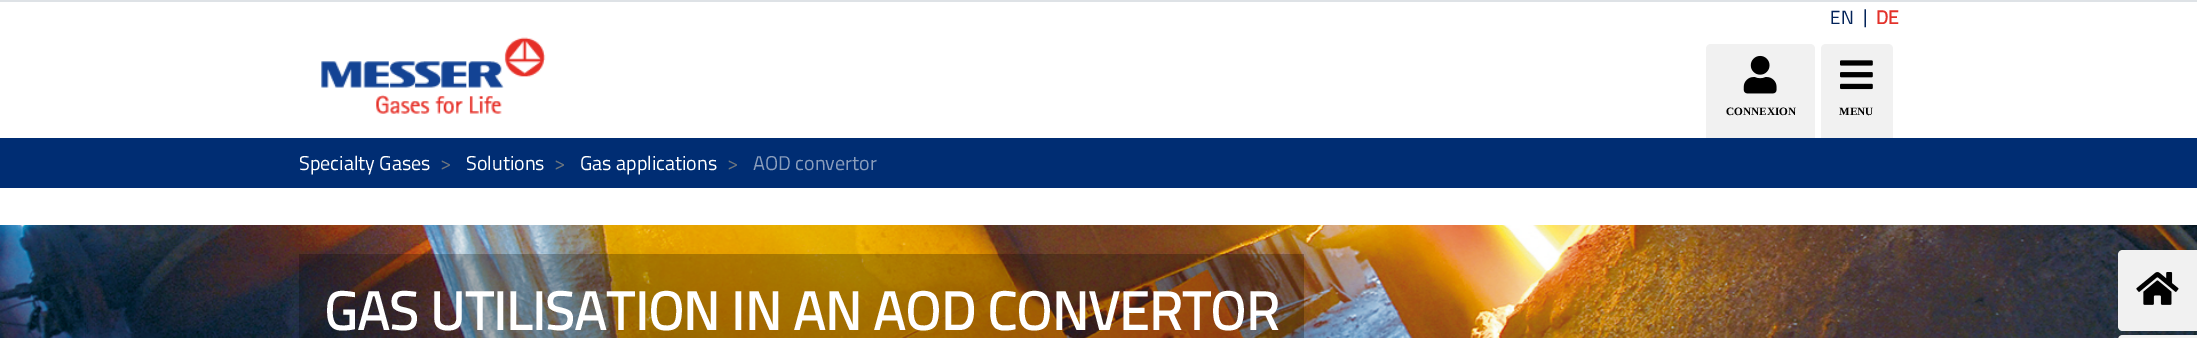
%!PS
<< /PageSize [2197 338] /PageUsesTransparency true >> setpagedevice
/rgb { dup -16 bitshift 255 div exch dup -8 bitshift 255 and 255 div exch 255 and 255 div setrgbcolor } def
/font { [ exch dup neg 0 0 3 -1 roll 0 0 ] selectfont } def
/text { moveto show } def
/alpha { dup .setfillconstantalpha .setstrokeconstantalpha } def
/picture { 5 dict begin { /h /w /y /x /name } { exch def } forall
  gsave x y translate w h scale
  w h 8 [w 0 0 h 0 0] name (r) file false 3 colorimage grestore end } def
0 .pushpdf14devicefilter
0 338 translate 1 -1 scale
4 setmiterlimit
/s1 { /TitilliumWeb-Regular 19 font 16#032359 rgb } def
/s2 { /TitilliumWeb-Bold 19 font 16#E3312A rgb } def
/s3 { /LiberationSerif-Bold 11.25 font 16#000000 rgb } def
/s4 { /TitilliumWeb-Regular 20 font 16#FFFFFF rgb } def
/s5 { /TitilliumWeb-Regular 20 font 16#6C757D rgb } def
/s6 { /TitilliumWeb-Regular 20 font 16#8B9EBC rgb } def
/s7 { /TitilliumWeb-Bold 53.75 font 16#FFFFFF rgb } def
16#FFFFFF rgb
0 0 2197 338 rectfill
16#DEE2E6 rgb
0 0 2197 2 rectfill
s1
(EN) 1830 24 text
(|) 1863 23 text
s2
(DE) 1876 24 text
(pic1.raw) 321 37 225 77 picture
16#F1F1F1 rgb
1711 44 moveto 1810 44 lineto 1813 44 1815 46 1815 49 curveto 1815 138 lineto 1706 138 lineto 1706 49 lineto 1706 46 1708 44 1711 44 curveto closepath fill
(pic2.raw) 1743 55 34 39 picture
s3
(CONNEXION) 1726 115 text
16#F1F1F1 rgb
1826 44 moveto 1888 44 lineto 1891 44 1893 46 1893 49 curveto 1893 138 lineto 1821 138 lineto 1821 49 lineto 1821 46 1823 44 1826 44 curveto closepath fill
(pic3.raw) 1840 60 33 30 picture
s3
(MENU) 1839 115 text
16#002D73 rgb
0 138 2197 50 rectfill
s4
(Specialty Gases) 299 170 text
s5
(>) 440 170 text
s4
(Solutions) 466 170 text
s5
(>) 554 170 text
s4
(Gas applications) 580 170 text
s5
(>) 727 170 text
s6
(AOD convertor) 753 170 text
(pic4.raw) 0 225 2197 113 picture
0.25 alpha
16#000000 rgb
299 254 1005 84 rectfill
1 alpha
s7
(GAS UTILISATION IN AN AOD CONVERTOR) 324 330 text
16#F1F1F1 rgb
2123 250 moveto 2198 250 lineto 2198 331 lineto 2123 331 lineto 2120 331 2118 329 2118 326 curveto 2118 255 lineto 2118 252 2120 250 2123 250 curveto closepath fill
(pic5.raw) 2136 272 43 33 picture
2123 335 moveto 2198 335 lineto 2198 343 lineto 2123 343 lineto 2120 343 2118 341 2118 338 curveto 2118 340 lineto 2118 337 2120 335 2123 335 curveto closepath fill
.poppdf14devicefilter showpage
